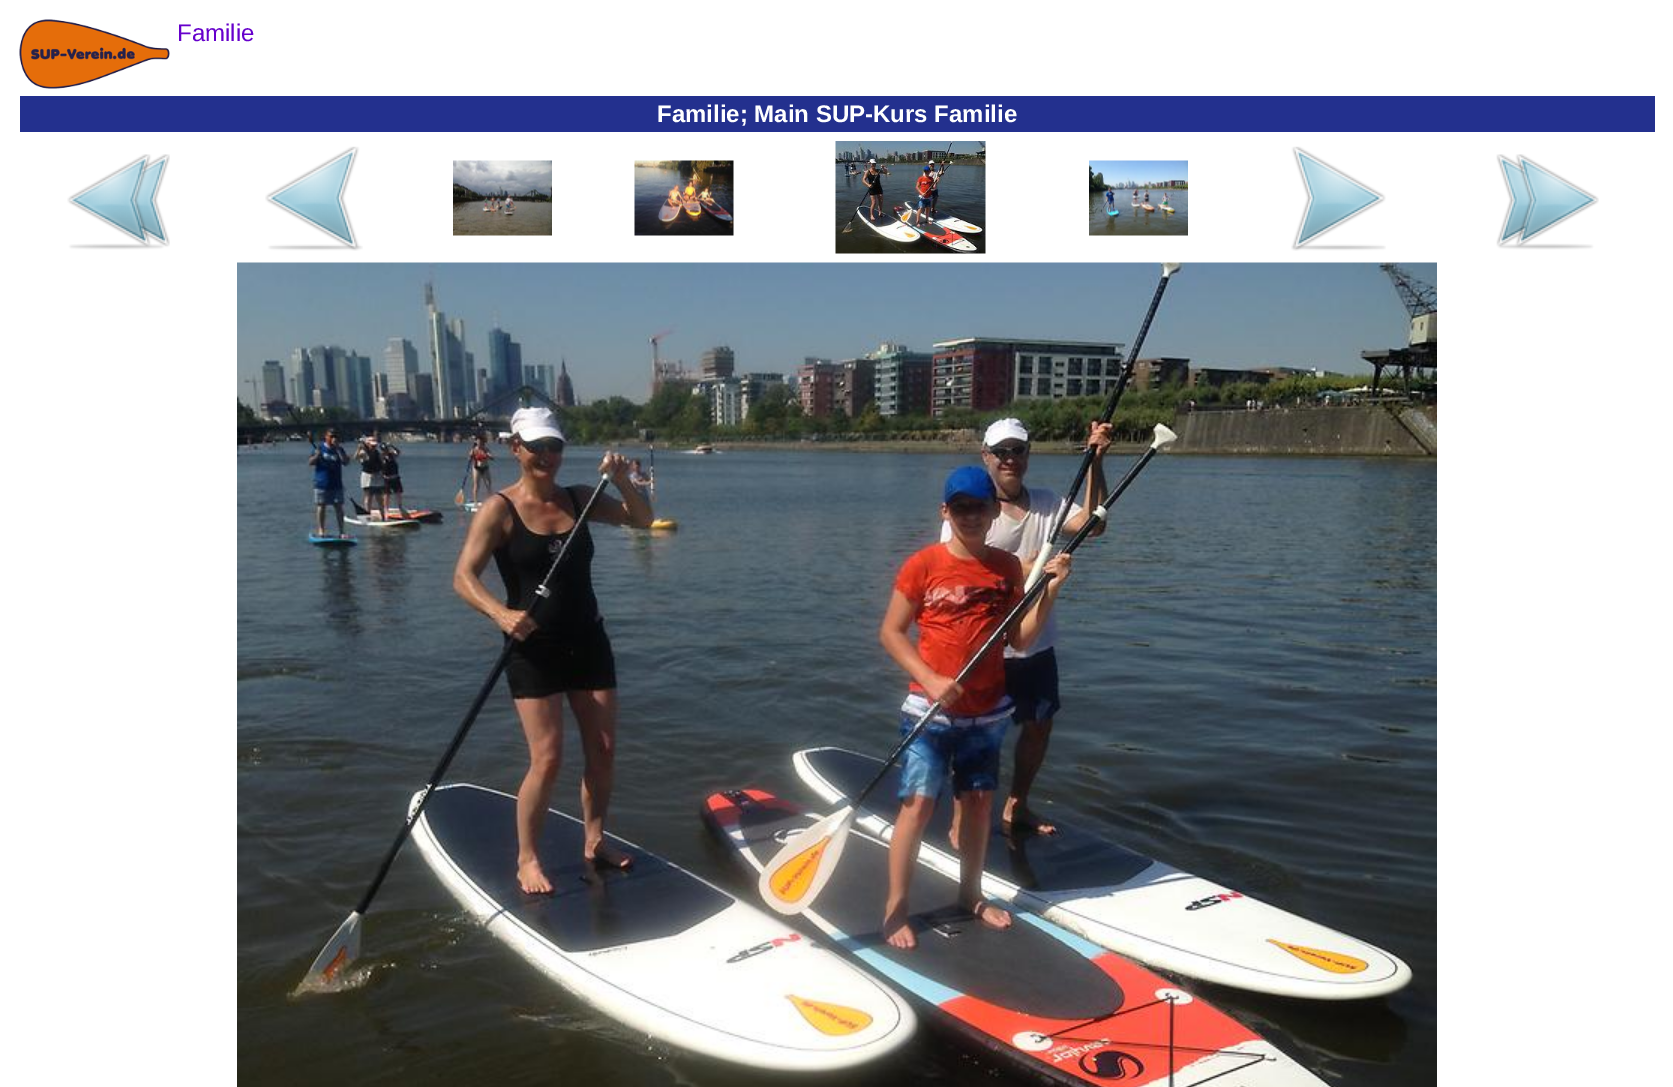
%!PS
<< /PageSize [1673 1087] >> setpagedevice
/rgb { dup -16 bitshift 255 div exch dup -8 bitshift 255 and 255 div exch 255 and 255 div setrgbcolor } def
/font { [ exch dup neg 0 0 3 -1 roll 0 0 ] selectfont } def
/text { moveto show } def
/picture { 5 dict begin { /h /w /y /x /name } { exch def } forall
  gsave x y translate w h scale
  w h 8 [w 0 0 h 0 0] name (r) file false 3 colorimage grestore end } def
0 1087 translate 1 -1 scale
4 setmiterlimit
/s1 { /LiberationSans-Regular 24 font 16#6600CC rgb } def
/s2 { /LiberationSans-Bold 24 font 16#FFFFFF rgb } def
16#FFFFFF rgb
0 0 1673 1087 rectfill
(pic1.raw) 19 19 151 70 picture
s1
(Familie) 177 41 text
16#23308E rgb
20 96 1635 36 rectfill
s2
(Familie; Main SUP-Kurs Familie) 657 122 text
(pic2.raw) 67 154 103 96 picture
(pic3.raw) 265 146 98 105 picture
(pic4.raw) 453 160 99 76 picture
(pic5.raw) 634 160 100 76 picture
(pic6.raw) 835 141 151 113 picture
(pic7.raw) 1089 160 99 76 picture
(pic8.raw) 1291 146 95 105 picture
(pic9.raw) 1496 154 103 96 picture
(pic10.raw) 237 262 1200 825 picture
showpage
